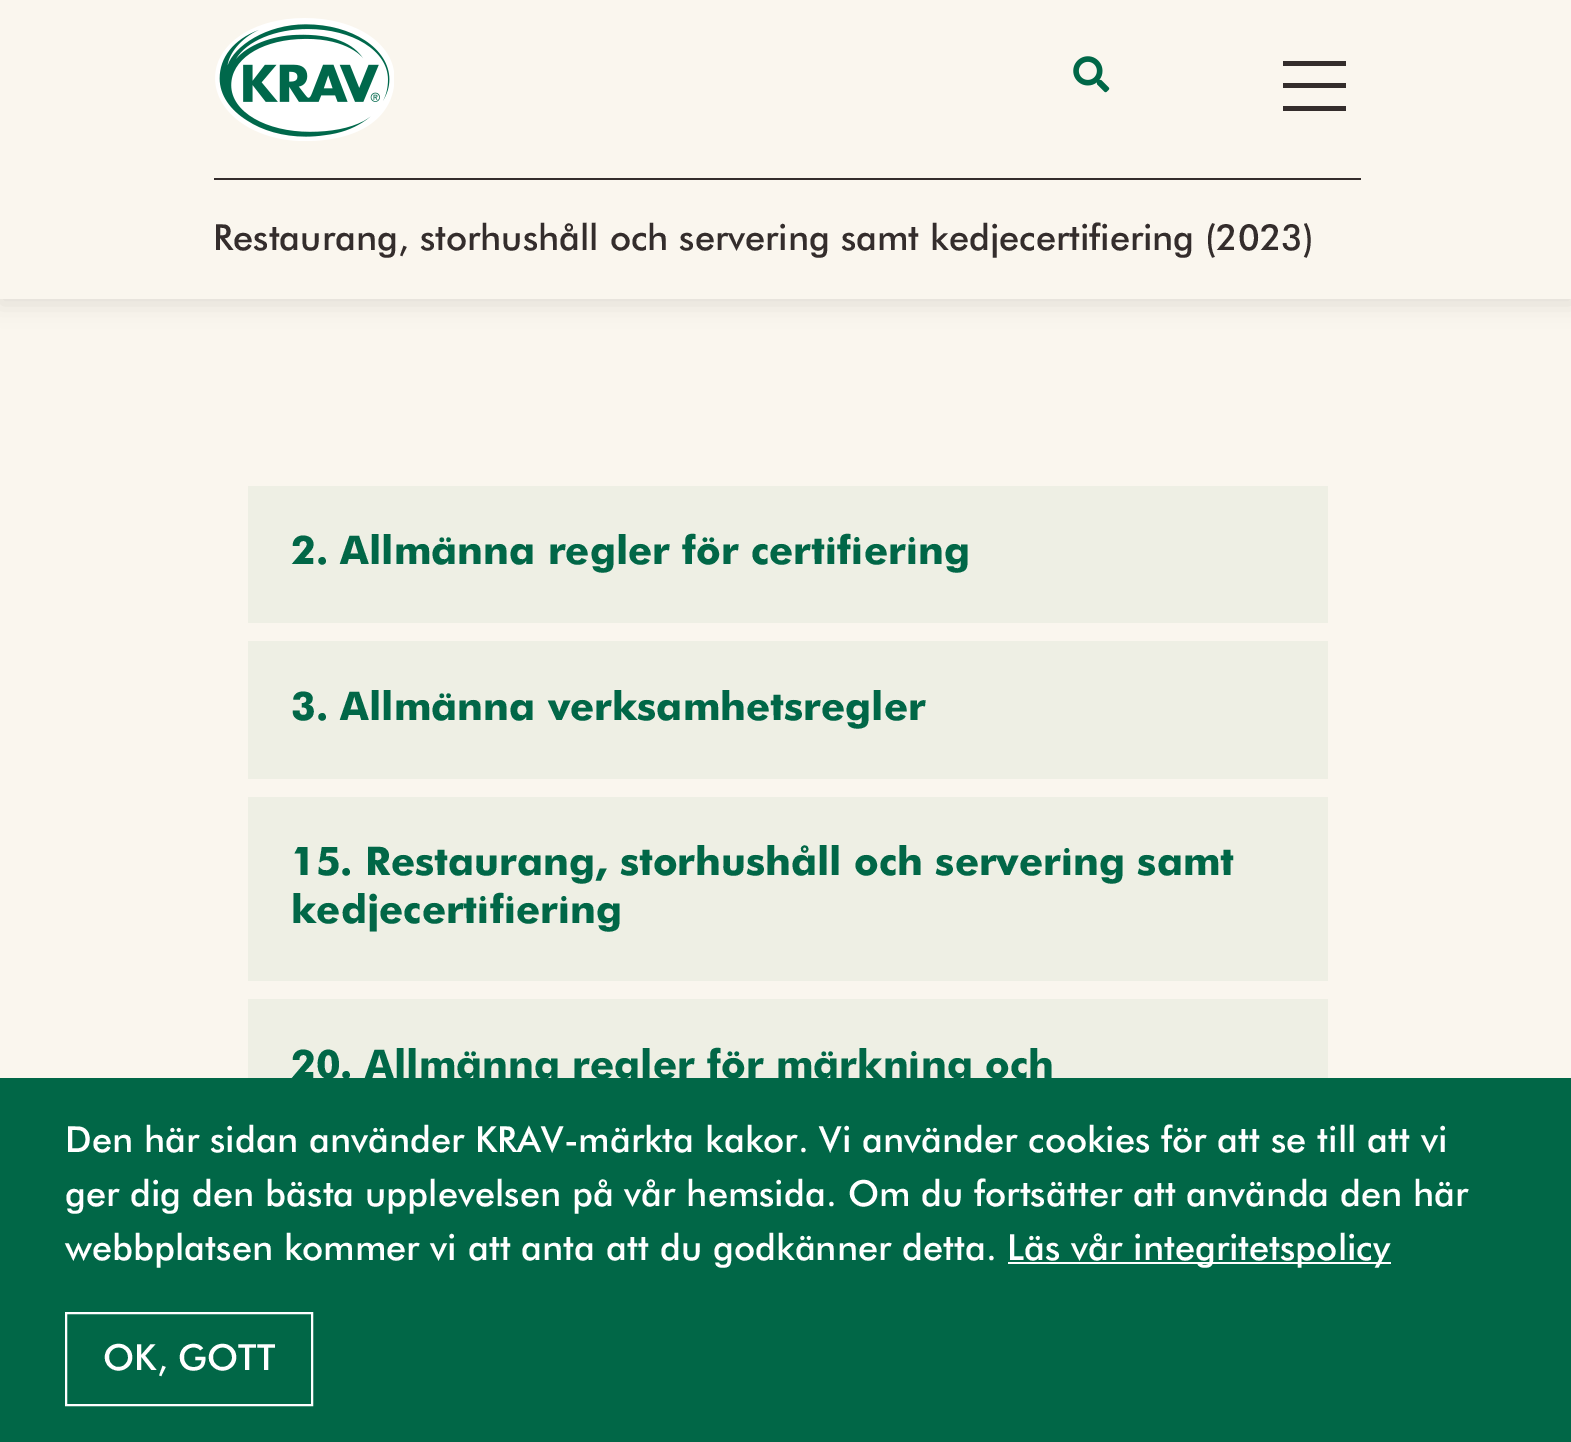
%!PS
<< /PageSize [1571 1442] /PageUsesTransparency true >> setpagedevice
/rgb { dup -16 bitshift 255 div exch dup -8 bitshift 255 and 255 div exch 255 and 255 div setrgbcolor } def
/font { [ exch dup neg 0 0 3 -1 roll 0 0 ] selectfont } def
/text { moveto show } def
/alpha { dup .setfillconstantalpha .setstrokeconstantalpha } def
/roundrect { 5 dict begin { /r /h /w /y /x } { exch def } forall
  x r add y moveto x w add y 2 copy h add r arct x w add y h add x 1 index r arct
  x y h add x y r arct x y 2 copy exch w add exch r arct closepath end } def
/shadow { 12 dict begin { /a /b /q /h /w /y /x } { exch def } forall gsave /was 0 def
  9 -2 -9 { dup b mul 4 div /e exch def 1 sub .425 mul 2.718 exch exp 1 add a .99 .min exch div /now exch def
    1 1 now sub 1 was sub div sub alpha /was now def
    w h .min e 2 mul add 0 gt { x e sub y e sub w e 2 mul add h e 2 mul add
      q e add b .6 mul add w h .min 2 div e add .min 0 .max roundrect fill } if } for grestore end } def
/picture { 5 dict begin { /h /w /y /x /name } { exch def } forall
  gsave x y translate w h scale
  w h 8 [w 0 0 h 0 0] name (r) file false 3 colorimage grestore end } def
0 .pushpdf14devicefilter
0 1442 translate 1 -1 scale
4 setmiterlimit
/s1 { /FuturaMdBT-Medium 36 font 16#342D2C rgb } def
/s2 { /Futura-Bold 39.6 font 16#016747 rgb } def
/s3 { /FuturaMdBT-Medium 36 font 16#FFFFFF rgb } def
16#FAF6EE rgb
0 0 1571 1442 rectfill
16#000000 rgb
0 5 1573 299 0 11 0.1 shadow
16#FAF6EE rgb
0 0 1571 299 rectfill
16#342D2C rgb
214 178 1147 2 rectfill
(pic1.raw) 215 18 179 123 picture
(pic2.raw) 1073 56 37 37 picture
1283 83 63 5 rectfill
1283 61 63 5 rectfill
1283 106 63 5 rectfill
s1
(Restaurang, storhushåll och servering samt kedjecertifiering \(2023\)) 213 250 text
16#EEEFE4 rgb
248 486 1080 137 rectfill
s2
(2. Allmänna regler för certifiering) 291 564 text
16#EEEFE4 rgb
248 641 1080 138 rectfill
s2
(3. Allmänna verksamhetsregler) 291 720 text
16#EEEFE4 rgb
248 797 1080 184 rectfill
s2
(15. Restaurang, storhushåll och servering samt) 291 875 text
(kedjecertifiering) 291 923 text
16#EEEFE4 rgb
248 999 1080 79 rectfill
s2
(20. Allmänna regler för märkning och) 291 1078 text
0 1078 1571 364 rectfill
s3
(Den här sidan använder KRAV-märkta kakor. Vi använder cookies för att se till att vi) 65 1152 text
(ger dig den bästa upplevelsen på vår hemsida. Om du fortsätter att använda den här) 65 1206 text
(webbplatsen kommer vi att anta att du godkänner detta.) 65 1260 text
1008 1262 383 2 rectfill
(Läs vår integritetspolicy) 1007 1260 text
2 setlinewidth
66 1313 246 92 rectstroke
(OK, GOTT) 103 1370 text
.poppdf14devicefilter showpage
